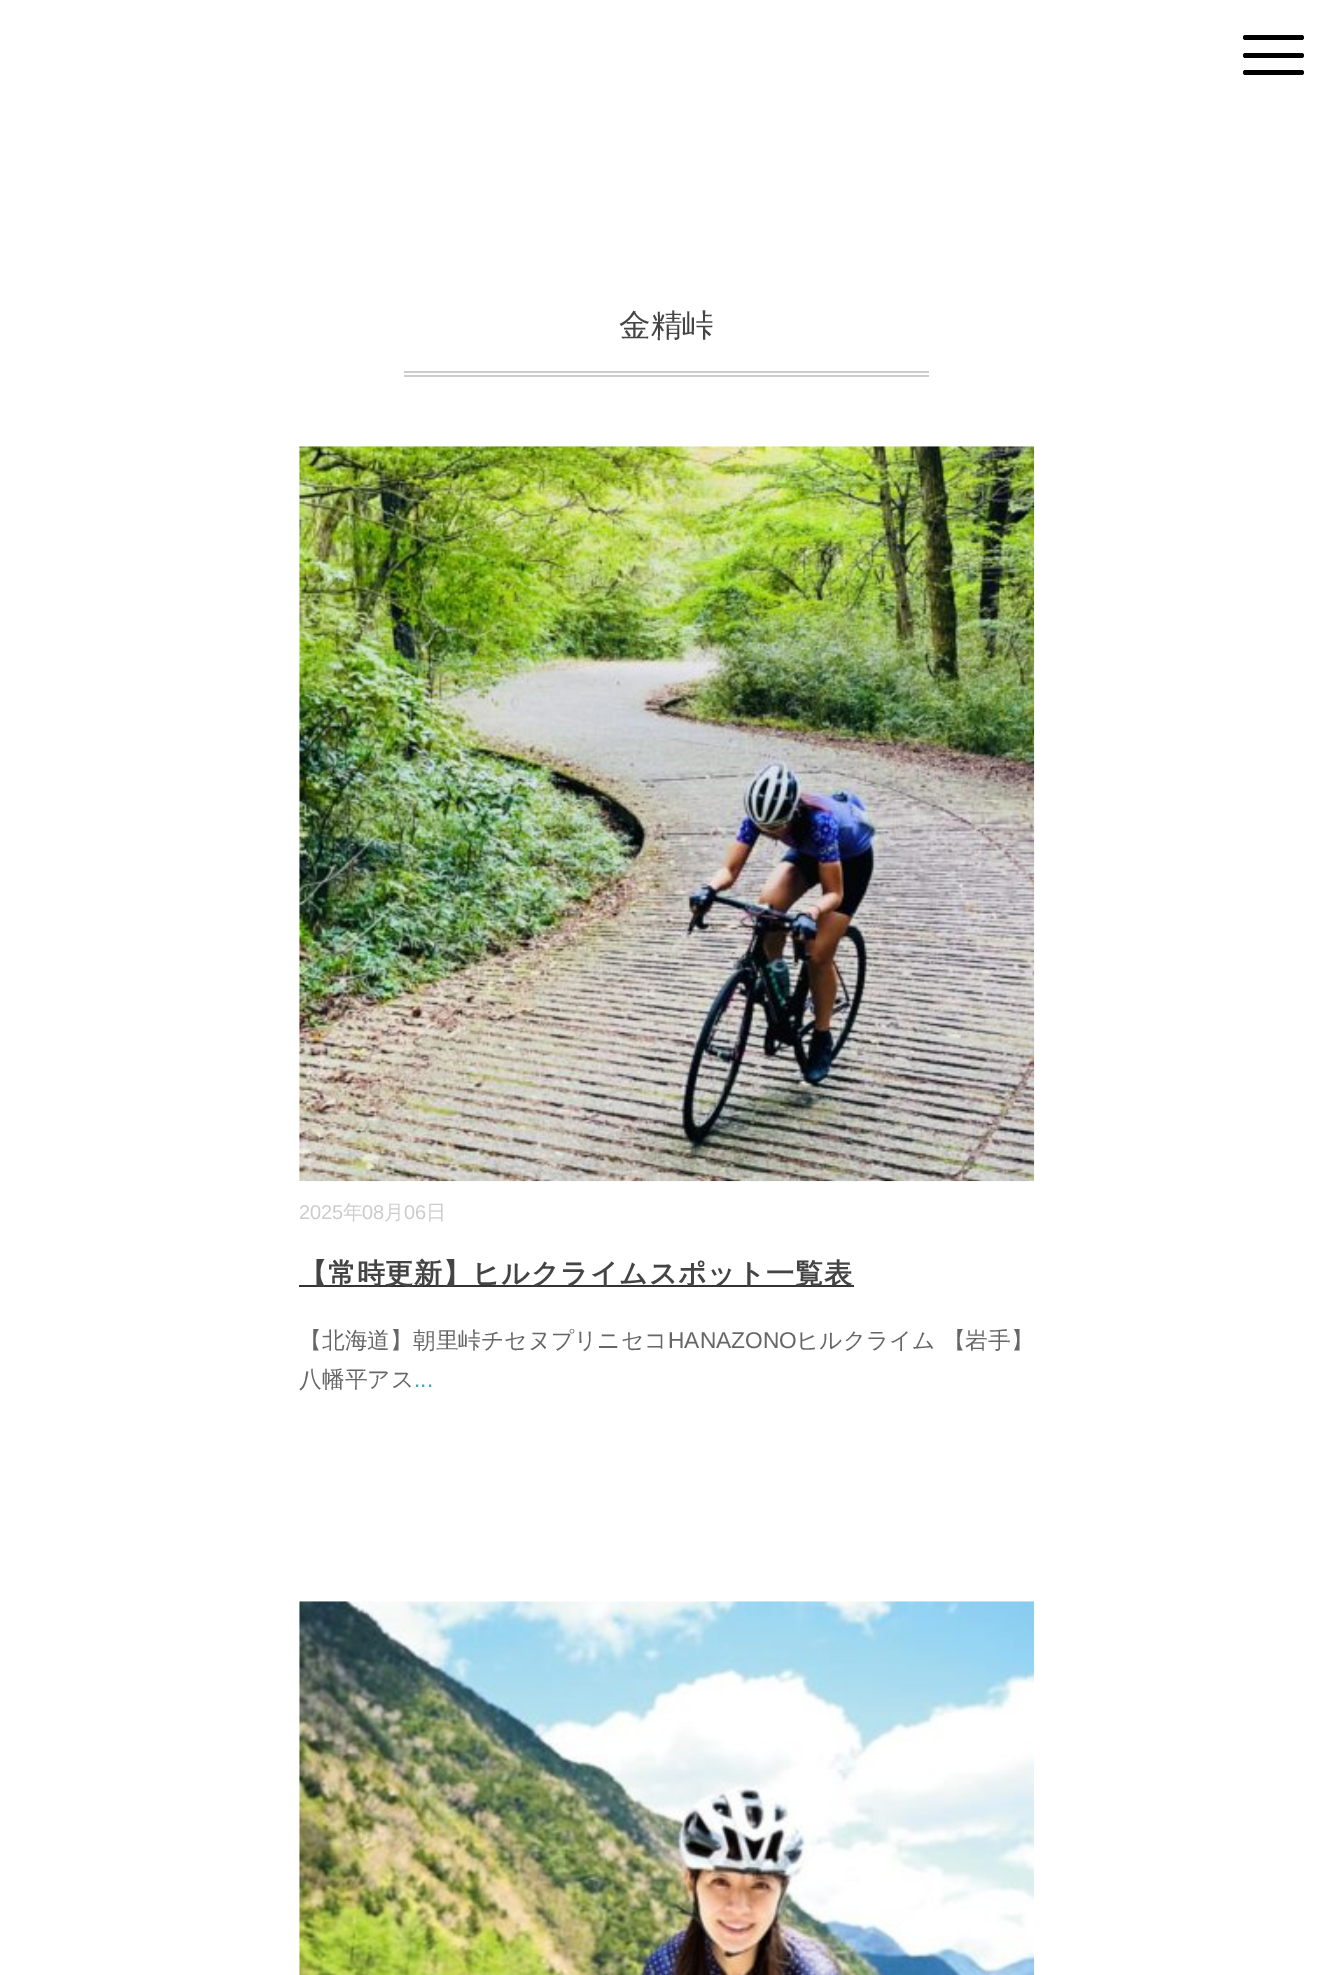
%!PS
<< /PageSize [1333 1975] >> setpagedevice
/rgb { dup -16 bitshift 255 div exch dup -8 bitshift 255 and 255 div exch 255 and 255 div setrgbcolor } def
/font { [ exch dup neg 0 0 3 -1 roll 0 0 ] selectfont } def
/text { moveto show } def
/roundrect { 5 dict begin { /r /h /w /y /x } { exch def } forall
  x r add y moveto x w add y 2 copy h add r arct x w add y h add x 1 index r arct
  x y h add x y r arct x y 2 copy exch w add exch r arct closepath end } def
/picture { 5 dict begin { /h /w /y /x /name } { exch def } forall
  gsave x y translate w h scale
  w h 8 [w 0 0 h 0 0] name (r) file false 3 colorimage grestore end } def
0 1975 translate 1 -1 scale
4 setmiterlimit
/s1 { /WenQuanYiZenHei-Medium 31.5 font 16#444444 rgb } def
/s2 { /LiberationSans-Regular 20 font 16#CCCCCC rgb } def
/s3 { /WenQuanYiZenHei-Medium 20 font 16#CCCCCC rgb } def
/s4 { /WenQuanYiZenHei-Medium 22.75 font 16#666666 rgb } def
/s5 { /LiberationSans-Regular 22.75 font 16#666666 rgb } def
/s6 { /LiberationSans-Regular 22.75 font 16#45AAB8 rgb } def
16#FFFFFF rgb
0 0 1333 1975 rectfill
16#000000 rgb
1243 53 61 5 2.5 roundrect fill
1243 35 61 5 2.5 roundrect fill
1243 70 61 5 2.5 roundrect fill
16#CCCCCC rgb
404 371 525 2 rectfill
404 375 525 2 rectfill
s1
(金精峠) 619 336 text
(pic1.raw) 299 446 736 736 picture
s2
(2025) 299 1219 text
s3
(年) 343 1219 text
s2
(08) 362 1219 text
s3
(月) 384 1219 text
s2
(06) 404 1219 text
s3
(日) 426 1219 text
16#333333 rgb
299 1285 555 2 rectfill
/WenQuanYiZenHei-Bold 28 font
16#444444 rgb
299 1283 moveto 0.8 0 (【常時更新】ヒルクライムスポット一覧表) ashow
s4
(【北海道】朝里峠チセヌプリニセコ) 299 1348 text
s5
(HANAZONO) 668 1348 text
s4
(ヒルクライム 【岩手】) 796 1348 text
(八幡平アス) 299 1387 text
s6
(...) 414 1387 text
(pic2.raw) 299 1601 736 374 picture
showpage
